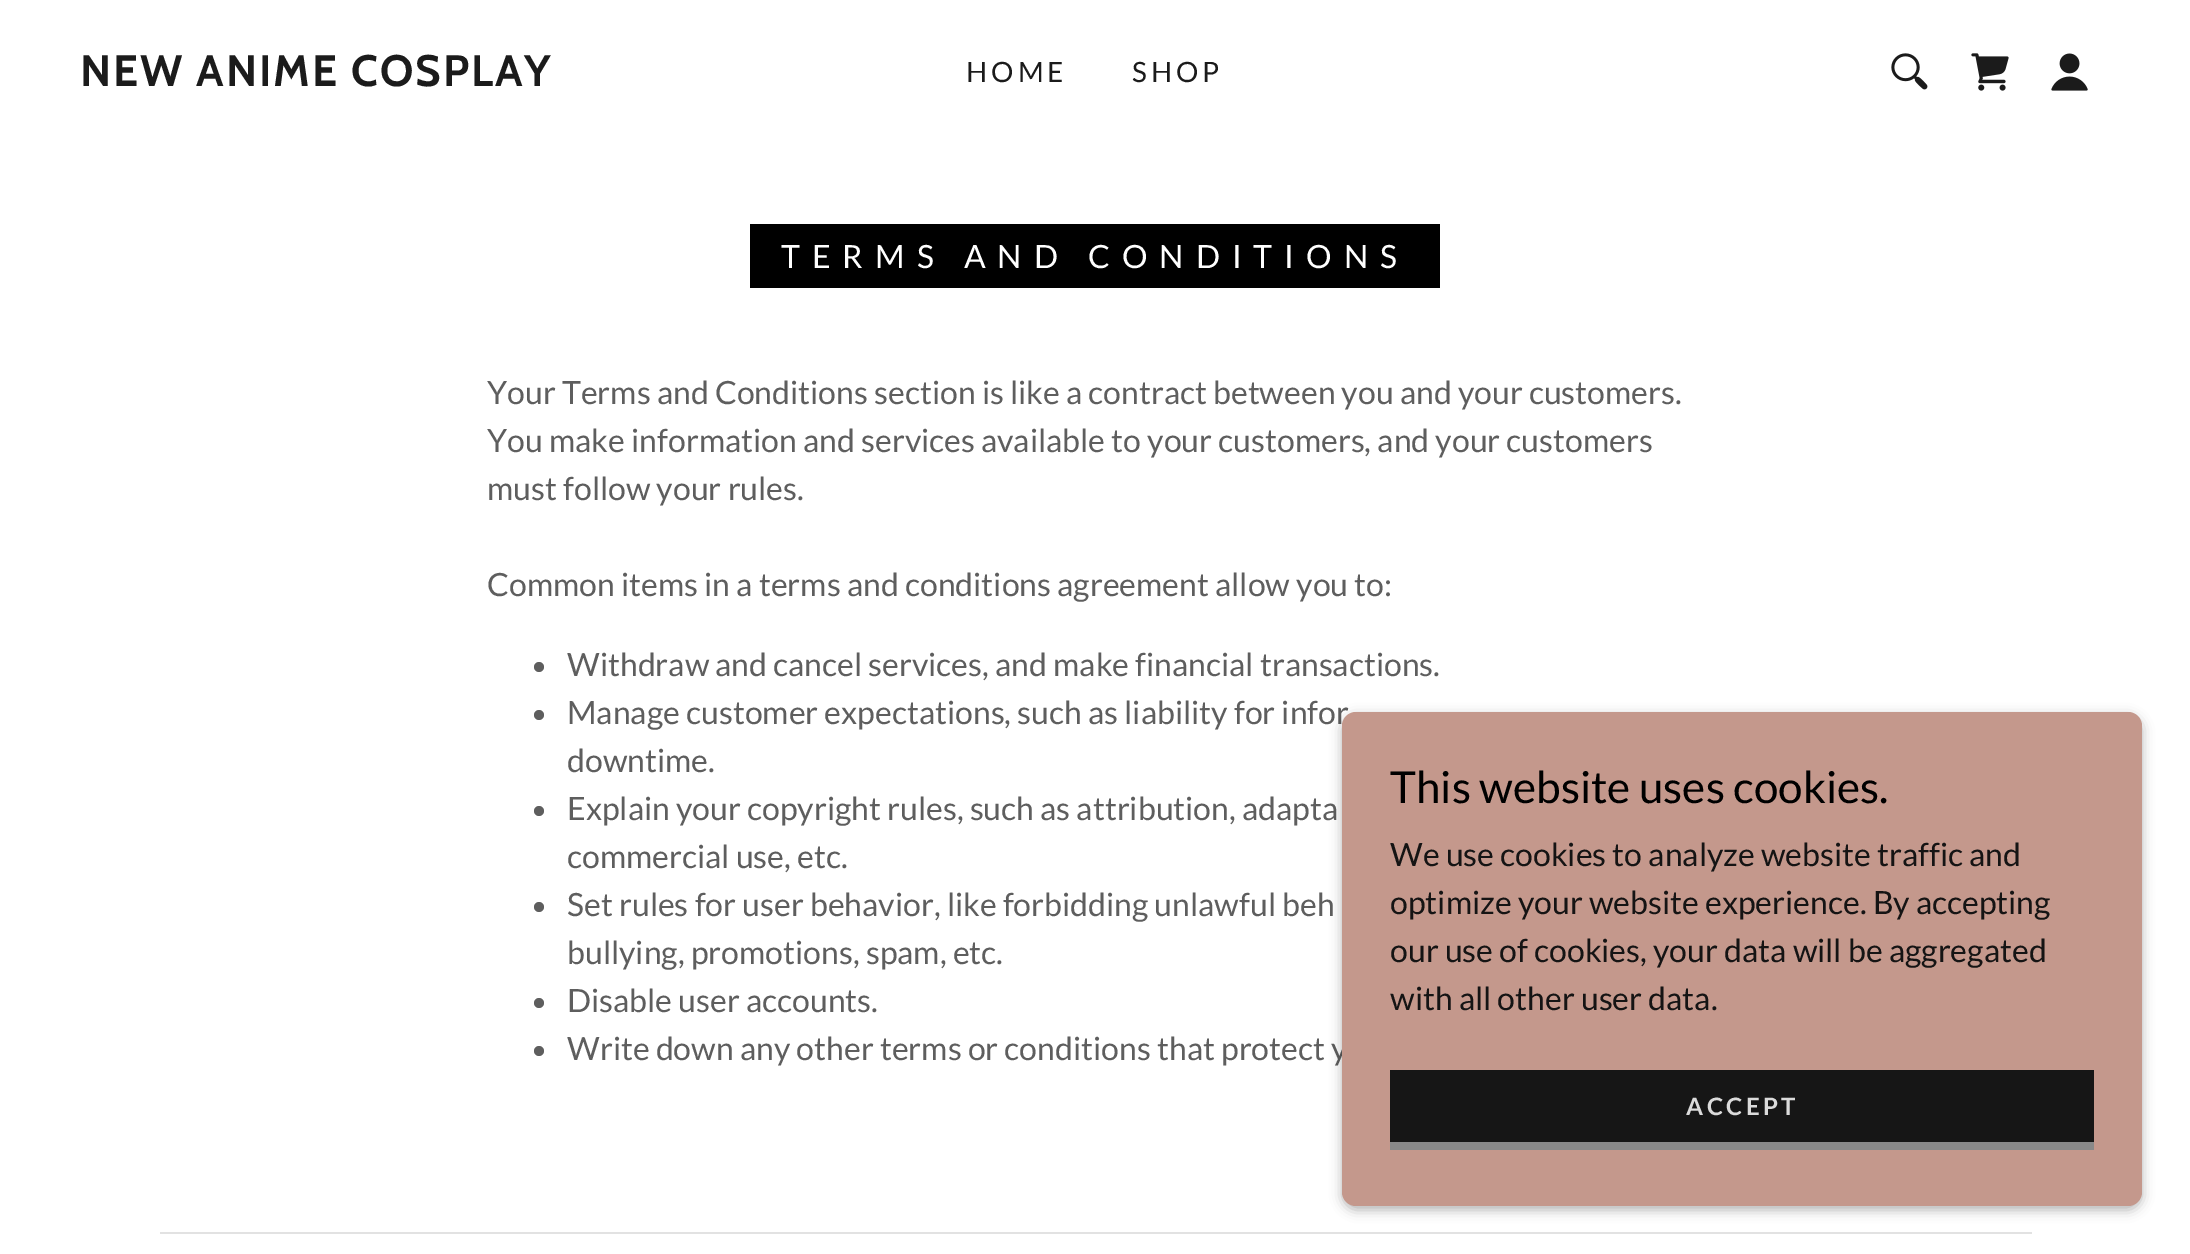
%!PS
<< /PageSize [2190 1254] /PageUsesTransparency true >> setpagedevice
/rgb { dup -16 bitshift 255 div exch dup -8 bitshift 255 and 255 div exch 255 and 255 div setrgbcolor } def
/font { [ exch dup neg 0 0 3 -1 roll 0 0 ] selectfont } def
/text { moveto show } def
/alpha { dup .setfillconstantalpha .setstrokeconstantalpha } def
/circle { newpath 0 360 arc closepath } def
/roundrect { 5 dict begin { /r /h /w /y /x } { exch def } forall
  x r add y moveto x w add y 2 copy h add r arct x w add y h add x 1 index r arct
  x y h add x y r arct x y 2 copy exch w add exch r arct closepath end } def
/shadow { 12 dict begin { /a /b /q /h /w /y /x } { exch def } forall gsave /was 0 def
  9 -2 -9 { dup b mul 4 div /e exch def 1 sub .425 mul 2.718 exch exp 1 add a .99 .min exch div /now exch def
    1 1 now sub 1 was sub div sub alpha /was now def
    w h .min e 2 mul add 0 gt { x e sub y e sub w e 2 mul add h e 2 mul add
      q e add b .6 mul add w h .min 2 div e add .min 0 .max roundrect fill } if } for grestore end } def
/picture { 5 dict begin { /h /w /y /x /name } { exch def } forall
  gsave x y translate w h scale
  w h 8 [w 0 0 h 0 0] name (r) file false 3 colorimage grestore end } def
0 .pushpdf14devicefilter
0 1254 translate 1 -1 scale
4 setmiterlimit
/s1 { /Lato-Regular 32 font 16#5E5E5E rgb } def
/s2 { /Lato-Regular 44 font 16#000000 rgb } def
/s3 { /Lato-Regular 32 font 16#151414 rgb } def
16#FFFFFF rgb
0 0 2190 1254 rectfill
/Cabin-Bold 44 font
16#1B1B1B rgb
80 86 moveto 2 0 (NEW ANIME COSPLAY) ashow
/Lato-Regular 28 font
966 82 moveto 4 0 (HOME) ashow
1132 82 moveto 4 0 (SHOP) ashow
(pic1.raw) 1891 53 37 37 picture
(pic2.raw) 1971 53 38 38 picture
(pic3.raw) 2051 53 37 38 picture
16#000000 rgb
750 224 690 64 rectfill
/Lato-Regular 32 font
16#FFFFFF rgb
781 268 moveto 12 0 (TERMS AND CONDITIONS) ashow
s1
(Your Terms and Conditions section is like a contract between you and your customers.) 487 404 text
(You make information and services available to your customers, and your customers) 487 452 text
(must follow your rules.) 487 500 text
(Common items in a terms and conditions agreement allow you to:) 487 596 text
539 667 5 circle fill
(Withdraw and cancel services, and make financial transactions.) 567 676 text
539 715 5 circle fill
(Manage customer expectations, such as liability for infor) 567 724 text
(downtime.) 567 772 text
539 811 5 circle fill
(Explain your copyright rules, such as attribution, adapta) 567 820 text
(commercial use, etc.) 567 868 text
539 907 5 circle fill
(Set rules for user behavior, like forbidding unlawful beh) 567 916 text
(bullying, promotions, spam, etc.) 567 964 text
539 1003 5 circle fill
(Disable user accounts.) 567 1012 text
539 1051 5 circle fill
(Write down any other terms or conditions that protect y) 567 1060 text
16#000000 rgb
1342 716 800 494 14 6 0.3 shadow
16#C4988C rgb
1342 712 800 494 14 roundrect fill
s2
(This website uses cookies.) 1390 803 text
s3
(We use cookies to analyze website traffic and) 1390 866 text
(optimize your website experience. By accepting) 1390 914 text
(our use of cookies, your data will be aggregated) 1390 962 text
(with all other user data.) 1390 1010 text
16#161616 rgb
1390 1070 704 72 rectfill
16#898989 rgb
1390 1142 704 8 rectfill
/Lato-Bold 24 font
16#DBDBDB rgb
1686 1115 moveto 3.5 0 (ACCEPT) ashow
16#E2E2E2 rgb
160 1232 1872 2 rectfill
.poppdf14devicefilter showpage
